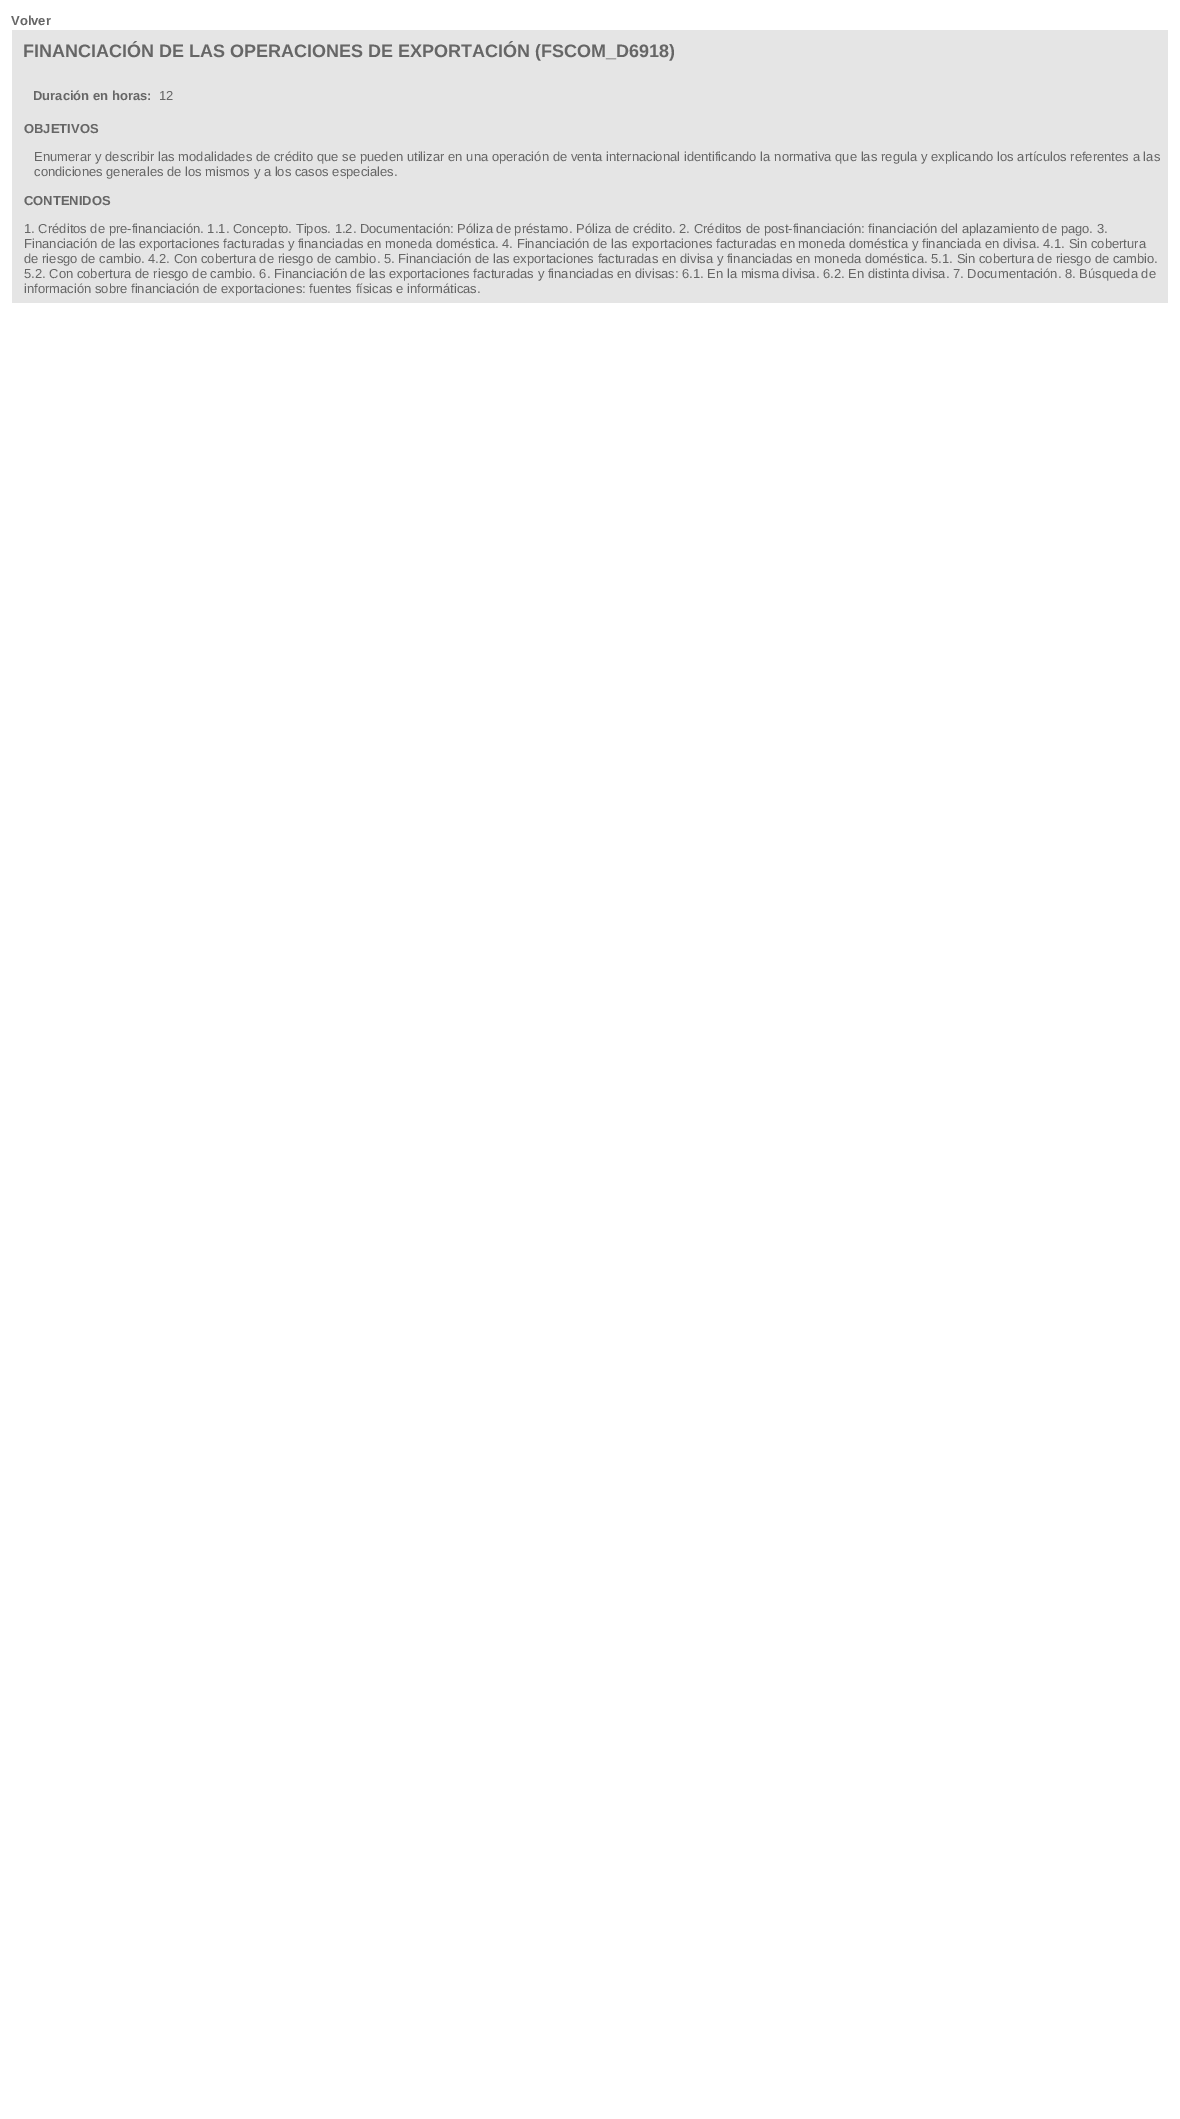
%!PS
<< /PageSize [1180 2119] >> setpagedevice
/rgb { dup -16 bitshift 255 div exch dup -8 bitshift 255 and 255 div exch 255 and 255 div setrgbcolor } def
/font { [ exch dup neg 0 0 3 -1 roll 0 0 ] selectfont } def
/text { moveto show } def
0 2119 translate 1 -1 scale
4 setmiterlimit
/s1 { /LiberationSans-Bold 13 font 16#666666 rgb } def
/s2 { /LiberationSans-Bold 18 font 16#666666 rgb } def
/s3 { /LiberationSans-Regular 13 font 16#666666 rgb } def
16#FFFFFF rgb
0 0 1180 2119 rectfill
s1
(Volver) 11 25 text
16#E5E5E5 rgb
12 30 1156 273 rectfill
s2
(FINANCIACIÓN DE LAS OPERACIONES DE EXPORTACIÓN \(FSCOM_D6918\)) 23 57 text
s1
(Duración en horas:) 33 100 text
s3
(12) 159 100 text
s1
(OBJETIVOS) 24 133 text
/LiberationSans-Regular 13 font
34 161 moveto 0.15 0 32 (Enumerar y describir las modalidades de crédito que se pueden utilizar en una operación de venta internacional identificando la normativa que las regula y explicando los artículos referentes a las) widthshow
(condiciones generales de los mismos y a los casos especiales.) 34 176 text
s1
(CONTENIDOS) 24 205 text
s3
(1. Créditos de pre-financiación. 1.1. Concepto. Tipos. 1.2. Documentación: Póliza de préstamo. Póliza de crédito. 2. Créditos de post-financiación: financiación del aplazamiento de pago. 3.) 24 233 text
(Financiación de las exportaciones facturadas y financiadas en moneda doméstica. 4. Financiación de las exportaciones facturadas en moneda doméstica y financiada en divisa. 4.1. Sin cobertura) 24 248 text
(de riesgo de cambio. 4.2. Con cobertura de riesgo de cambio. 5. Financiación de las exportaciones facturadas en divisa y financiadas en moneda doméstica. 5.1. Sin cobertura de riesgo de cambio.) 24 263 text
(5.2. Con cobertura de riesgo de cambio. 6. Financiación de las exportaciones facturadas y financiadas en divisas: 6.1. En la misma divisa. 6.2. En distinta divisa. 7. Documentación. 8. Búsqueda de) 24 278 text
(información sobre financiación de exportaciones: fuentes físicas e informáticas.) 24 293 text
showpage
